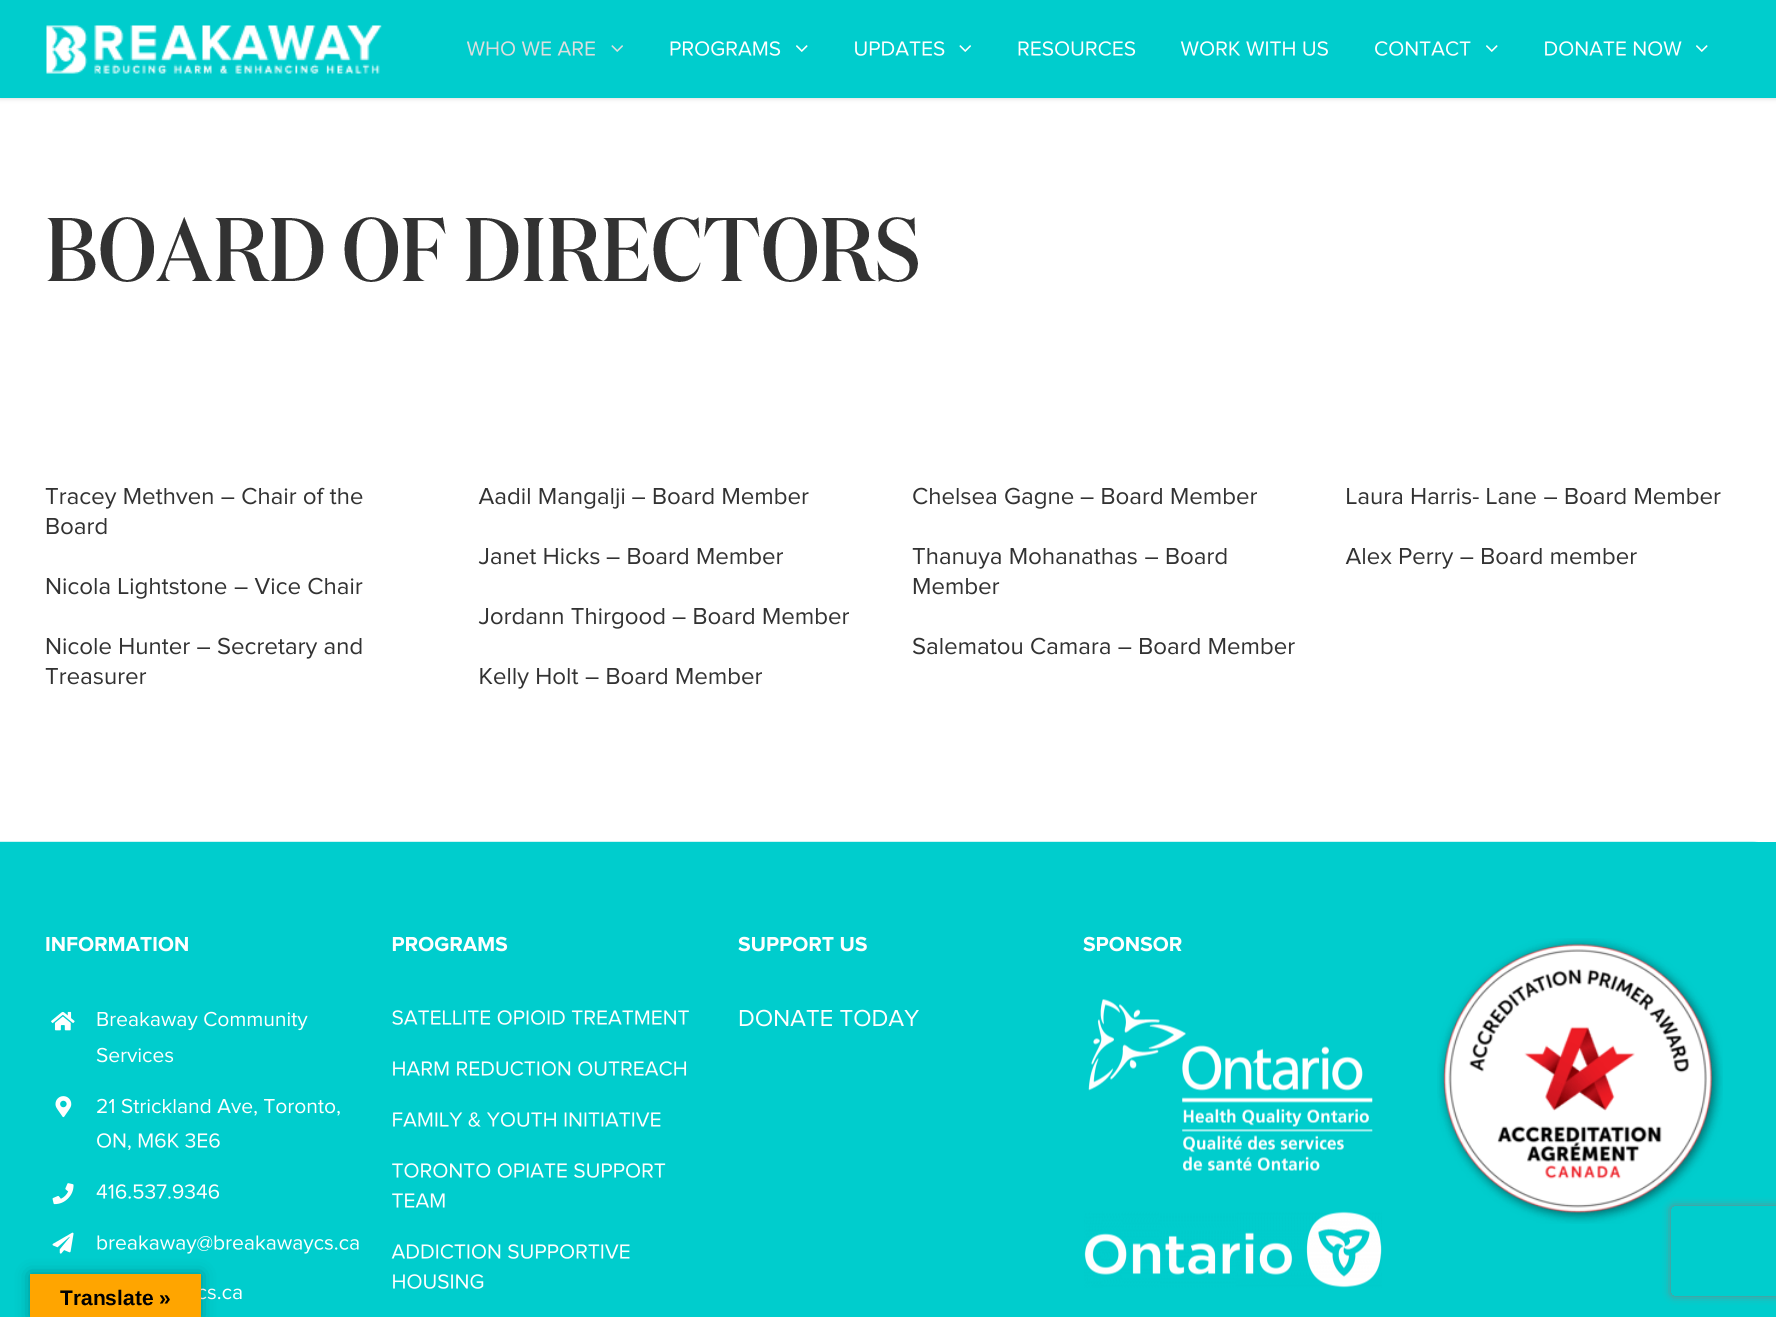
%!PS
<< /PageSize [1776 1317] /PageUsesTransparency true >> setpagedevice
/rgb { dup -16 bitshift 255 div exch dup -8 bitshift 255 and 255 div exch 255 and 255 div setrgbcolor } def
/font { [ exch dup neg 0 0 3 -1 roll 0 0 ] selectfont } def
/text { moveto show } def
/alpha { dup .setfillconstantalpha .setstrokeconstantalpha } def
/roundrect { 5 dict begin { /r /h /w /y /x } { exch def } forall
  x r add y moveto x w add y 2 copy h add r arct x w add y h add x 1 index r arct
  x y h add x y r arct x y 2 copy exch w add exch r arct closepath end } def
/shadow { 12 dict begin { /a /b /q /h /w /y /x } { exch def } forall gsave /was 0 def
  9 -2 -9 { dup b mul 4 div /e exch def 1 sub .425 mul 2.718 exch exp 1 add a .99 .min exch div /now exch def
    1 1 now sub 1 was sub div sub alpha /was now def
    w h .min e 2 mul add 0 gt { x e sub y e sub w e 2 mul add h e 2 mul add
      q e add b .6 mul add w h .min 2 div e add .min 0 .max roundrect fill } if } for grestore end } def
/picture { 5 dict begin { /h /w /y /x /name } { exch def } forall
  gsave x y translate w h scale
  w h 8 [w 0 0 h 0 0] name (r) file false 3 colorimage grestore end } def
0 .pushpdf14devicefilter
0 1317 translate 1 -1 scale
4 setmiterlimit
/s1 { /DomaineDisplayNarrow-Medium 90 font 16#323232 rgb } def
/s2 { /LiberationSans-Bold 21 font 16#000000 rgb } def
16#FFFFFF rgb
0 0 1776 1317 rectfill
16#000000 rgb
0 2 1776 97 0 2 0.12 shadow
16#00CDCD rgb
0 0 1776 98 rectfill
(pic1.raw) 46 25 336 49 picture
(pic2.raw) 467 41 128 15 picture
(pic3.raw) 611 45 12 7 picture
(pic4.raw) 670 41 111 15 picture
(pic5.raw) 796 45 12 7 picture
(pic6.raw) 855 41 90 15 picture
(pic7.raw) 959 45 12 7 picture
(pic8.raw) 1018 41 118 15 picture
(pic9.raw) 1180 41 148 15 picture
(pic10.raw) 1375 41 96 15 picture
(pic5.raw) 1486 45 12 7 picture
(pic11.raw) 1545 41 137 15 picture
(pic5.raw) 1696 45 12 7 picture
s1
(BOARD OF DIRECTORS) 45 281 text
(pic12.raw) 45 488 168 21 picture
(pic13.raw) 221 487 142 18 picture
(pic14.raw) 46 518 61 17 picture
(pic15.raw) 478 488 147 21 picture
(pic16.raw) 632 488 177 17 picture
(pic17.raw) 913 487 161 22 picture
(pic18.raw) 1080 488 177 17 picture
(pic19.raw) 1347 488 189 17 picture
(pic16.raw) 1544 488 177 17 picture
(pic20.raw) 478 548 122 17 picture
(pic18.raw) 606 548 177 17 picture
(pic21.raw) 912 548 225 21 picture
(pic22.raw) 1145 548 82 17 picture
(pic23.raw) 913 578 87 17 picture
(pic24.raw) 1345 548 109 21 picture
(pic25.raw) 1460 548 177 17 picture
(pic26.raw) 46 578 181 21 picture
(pic27.raw) 234 577 129 18 picture
(pic28.raw) 478 608 187 21 picture
(pic18.raw) 672 608 177 17 picture
(pic29.raw) 46 638 144 17 picture
(pic30.raw) 197 637 165 22 picture
(pic31.raw) 45 668 102 17 picture
(pic32.raw) 913 637 197 18 picture
(pic33.raw) 1118 638 177 17 picture
(pic34.raw) 480 668 99 21 picture
(pic18.raw) 585 668 177 17 picture
16#00CDCD rgb
0 842 1776 475 rectfill
(pic35.raw) 0 841 1758 1 picture
(pic36.raw) 46 936 142 16 picture
(pic37.raw) 51 1011 24 20 picture
(pic38.raw) 97 1011 211 20 picture
(pic39.raw) 96 1047 78 16 picture
(pic40.raw) 55 1096 17 22 picture
(pic41.raw) 97 1098 243 18 picture
(pic42.raw) 97 1133 123 18 picture
(pic43.raw) 52 1183 22 22 picture
(pic44.raw) 96 1184 124 15 picture
(pic45.raw) 52 1232 22 22 picture
(pic46.raw) 97 1235 262 19 picture
(pic47.raw) 201 1288 41 12 picture
(pic48.raw) 392 936 116 16 picture
(pic49.raw) 392 1010 297 15 picture
(pic50.raw) 393 1061 294 15 picture
(pic51.raw) 393 1112 268 15 picture
(pic52.raw) 392 1163 274 15 picture
(pic53.raw) 392 1193 53 15 picture
(pic54.raw) 391 1244 239 15 picture
(pic55.raw) 393 1274 91 15 picture
(pic56.raw) 738 936 129 16 picture
(pic57.raw) 739 1009 180 18 picture
(pic58.raw) 1083 936 99 16 picture
(pic59.raw) 1088 999 285 172 picture
(pic60.raw) 1084 1211 298 77 picture
(pic61.raw) 1437 938 286 286 picture
16#000000 rgb
30 1274 171 43 0 7 0.3 shadow
16#FFA500 rgb
30 1274 171 43 rectfill
s2
(Translate ») 60 1305 text
gsave
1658 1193 moveto 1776 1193 lineto 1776 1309 lineto 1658 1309 lineto closepath 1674 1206 moveto 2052 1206 lineto 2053.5 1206 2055 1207.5 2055 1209 curveto 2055 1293 lineto 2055 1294.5 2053.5 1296 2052 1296 curveto 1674 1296 lineto 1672.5 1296 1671 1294.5 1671 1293 curveto 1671 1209 lineto 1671 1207.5 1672.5 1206 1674 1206 curveto closepath eoclip newpath
16#808080 rgb
1671 1206 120 90 3 4 1 shadow
grestore
.poppdf14devicefilter showpage
